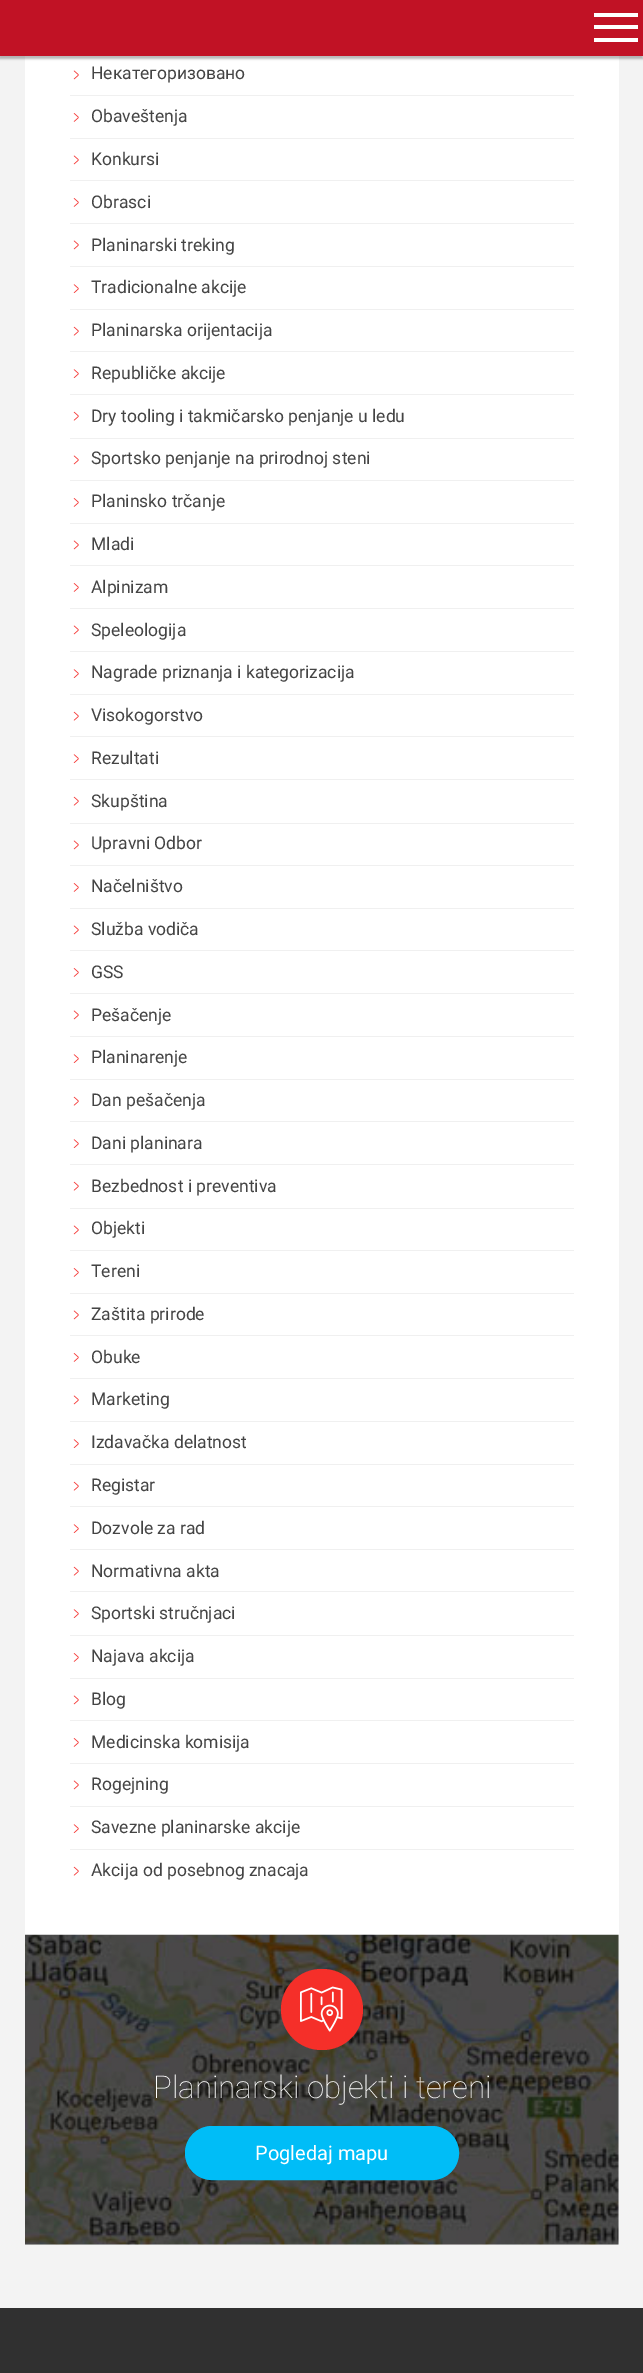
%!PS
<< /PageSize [643 2373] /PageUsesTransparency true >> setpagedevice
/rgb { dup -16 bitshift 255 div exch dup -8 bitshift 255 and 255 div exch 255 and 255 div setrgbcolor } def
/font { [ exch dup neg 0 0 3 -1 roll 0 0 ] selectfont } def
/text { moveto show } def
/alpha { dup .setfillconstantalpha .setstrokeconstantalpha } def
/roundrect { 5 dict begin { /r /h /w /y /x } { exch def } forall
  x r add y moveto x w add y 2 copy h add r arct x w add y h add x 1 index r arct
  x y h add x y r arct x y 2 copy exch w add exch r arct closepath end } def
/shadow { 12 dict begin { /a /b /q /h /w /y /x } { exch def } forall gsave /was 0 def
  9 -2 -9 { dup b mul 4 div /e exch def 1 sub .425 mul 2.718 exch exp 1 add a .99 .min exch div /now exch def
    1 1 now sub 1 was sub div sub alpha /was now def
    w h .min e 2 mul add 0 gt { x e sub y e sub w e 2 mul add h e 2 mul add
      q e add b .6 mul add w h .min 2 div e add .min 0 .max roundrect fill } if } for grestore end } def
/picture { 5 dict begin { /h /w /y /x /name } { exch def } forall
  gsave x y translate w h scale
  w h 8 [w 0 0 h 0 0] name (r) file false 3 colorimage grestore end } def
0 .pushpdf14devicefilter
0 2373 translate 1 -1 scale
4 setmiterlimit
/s1 { /Roboto-Regular 17.5 font 16#444444 rgb } def
/s2 { /Roboto-Thin 31.25 font 16#FFFFFF rgb } def
/s3 { /Roboto-Regular 20 font 16#FFFFFF rgb } def
16#F3F3F3 rgb
0 0 643 2373 rectfill
16#FFFFFF rgb
25 56 594 2189 rectfill
16#000000 rgb
-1 3 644 56 0 1 0.27 shadow
16#C11225 rgb
0 0 643 56 rectfill
16#FFFFFF rgb
594 25 44 4 rectfill
594 13 44 4 rectfill
594 38 44 4 rectfill
16#F0F0F0 rgb
70 95 504 1 rectfill
(pic1.raw) 73 70 6 10 picture
s1
(Некатегоризовано) 91 79 text
16#F0F0F0 rgb
70 138 504 1 rectfill
(pic2.raw) 73 113 6 9 picture
s1
(Obaveštenja) 91 122 text
16#F0F0F0 rgb
70 180 504 1 rectfill
(pic1.raw) 73 155 6 10 picture
s1
(Konkursi) 91 165 text
16#F0F0F0 rgb
70 223 504 1 rectfill
(pic2.raw) 73 198 6 9 picture
s1
(Obrasci) 91 208 text
16#F0F0F0 rgb
70 266 504 1 rectfill
(pic1.raw) 73 240 6 10 picture
s1
(Planinarski treking) 91 251 text
16#F0F0F0 rgb
70 309 504 1 rectfill
(pic3.raw) 73 284 6 9 picture
s1
(Tradicionalne akcije) 91 293 text
16#F0F0F0 rgb
70 351 504 1 rectfill
(pic4.raw) 73 326 6 10 picture
s1
(Planinarska orijentacija) 91 336 text
16#F0F0F0 rgb
70 394 504 1 rectfill
(pic3.raw) 73 369 6 9 picture
s1
(Republičke akcije) 91 379 text
16#F0F0F0 rgb
70 438 504 1 rectfill
(pic4.raw) 73 411 6 10 picture
s1
(Dry tooling i takmičarsko penjanje u ledu) 91 422 text
16#F0F0F0 rgb
70 480 504 1 rectfill
(pic1.raw) 73 455 6 10 picture
s1
(Sportsko penjanje na prirodnoj steni) 91 464 text
16#F0F0F0 rgb
70 523 504 1 rectfill
(pic2.raw) 73 498 6 9 picture
s1
(Planinsko trčanje) 91 507 text
16#F0F0F0 rgb
70 565 504 1 rectfill
(pic1.raw) 73 540 6 10 picture
s1
(Mladi) 91 550 text
16#F0F0F0 rgb
70 608 504 1 rectfill
(pic2.raw) 73 583 6 9 picture
s1
(Alpinizam) 91 593 text
16#F0F0F0 rgb
70 651 504 1 rectfill
(pic1.raw) 73 625 6 10 picture
s1
(Speleologija) 91 636 text
16#F0F0F0 rgb
70 694 504 1 rectfill
(pic3.raw) 73 669 6 9 picture
s1
(Nagrade priznanja i kategorizacija) 91 678 text
16#F0F0F0 rgb
70 736 504 1 rectfill
(pic4.raw) 73 711 6 10 picture
s1
(Visokogorstvo) 91 721 text
16#F0F0F0 rgb
70 779 504 1 rectfill
(pic3.raw) 73 754 6 9 picture
s1
(Rezultati) 91 764 text
16#F0F0F0 rgb
70 823 504 1 rectfill
(pic4.raw) 73 796 6 10 picture
s1
(Skupština) 91 807 text
16#F0F0F0 rgb
70 865 504 1 rectfill
(pic1.raw) 73 840 6 10 picture
s1
(Upravni Odbor) 91 849 text
16#F0F0F0 rgb
70 908 504 1 rectfill
(pic2.raw) 73 883 6 9 picture
s1
(Načelništvo) 91 892 text
16#F0F0F0 rgb
70 950 504 1 rectfill
(pic1.raw) 73 925 6 10 picture
s1
(Služba vodiča) 91 935 text
16#F0F0F0 rgb
70 993 504 1 rectfill
(pic2.raw) 73 968 6 9 picture
s1
(GSS) 91 978 text
16#F0F0F0 rgb
70 1036 504 1 rectfill
(pic1.raw) 73 1010 6 10 picture
s1
(Pešačenje) 91 1021 text
16#F0F0F0 rgb
70 1079 504 1 rectfill
(pic3.raw) 73 1054 6 9 picture
s1
(Planinarenje) 91 1063 text
16#F0F0F0 rgb
70 1121 504 1 rectfill
(pic4.raw) 73 1096 6 10 picture
s1
(Dan pešačenja) 91 1106 text
16#F0F0F0 rgb
70 1164 504 1 rectfill
(pic3.raw) 73 1139 6 9 picture
s1
(Dani planinara) 91 1149 text
16#F0F0F0 rgb
70 1208 504 1 rectfill
(pic4.raw) 73 1181 6 10 picture
s1
(Bezbednost i preventiva) 91 1192 text
16#F0F0F0 rgb
70 1250 504 1 rectfill
(pic1.raw) 73 1225 6 10 picture
s1
(Objekti) 91 1234 text
16#F0F0F0 rgb
70 1293 504 1 rectfill
(pic2.raw) 73 1268 6 9 picture
s1
(Tereni) 91 1277 text
16#F0F0F0 rgb
70 1335 504 1 rectfill
(pic1.raw) 73 1310 6 10 picture
s1
(Zaštita prirode) 91 1320 text
16#F0F0F0 rgb
70 1378 504 1 rectfill
(pic2.raw) 73 1353 6 9 picture
s1
(Obuke) 91 1363 text
16#F0F0F0 rgb
70 1421 504 1 rectfill
(pic1.raw) 73 1395 6 10 picture
s1
(Marketing) 91 1405 text
16#F0F0F0 rgb
70 1464 504 1 rectfill
(pic3.raw) 73 1439 6 9 picture
s1
(Izdavačka delatnost) 91 1448 text
16#F0F0F0 rgb
70 1506 504 1 rectfill
(pic4.raw) 73 1481 6 10 picture
s1
(Registar) 91 1491 text
16#F0F0F0 rgb
70 1549 504 1 rectfill
(pic3.raw) 73 1524 6 9 picture
s1
(Dozvole za rad) 91 1534 text
16#F0F0F0 rgb
70 1591 504 1 rectfill
(pic4.raw) 73 1566 6 10 picture
s1
(Normativna akta) 91 1577 text
16#F0F0F0 rgb
70 1635 504 1 rectfill
(pic3.raw) 73 1609 6 9 picture
s1
(Sportski stručnjaci) 91 1619 text
16#F0F0F0 rgb
70 1678 504 1 rectfill
(pic2.raw) 73 1653 6 9 picture
s1
(Najava akcija) 91 1662 text
16#F0F0F0 rgb
70 1720 504 1 rectfill
(pic1.raw) 73 1695 6 10 picture
s1
(Blog) 91 1705 text
16#F0F0F0 rgb
70 1763 504 1 rectfill
(pic2.raw) 73 1738 6 9 picture
s1
(Medicinska komisija) 91 1748 text
16#F0F0F0 rgb
70 1806 504 1 rectfill
(pic1.raw) 73 1780 6 10 picture
s1
(Rogejning) 91 1790 text
16#F0F0F0 rgb
70 1849 504 1 rectfill
(pic3.raw) 73 1824 6 9 picture
s1
(Savezne planinarske akcije) 91 1833 text
(pic4.raw) 73 1866 6 10 picture
(Akcija od posebnog znacaja) 91 1876 text
(pic5.raw) 25 1934 594 311 picture
16#F52F29 rgb
281 1969 82 81 40.5 roundrect fill
(pic6.raw) 300 1986 43 46 picture
s2
(Planinarski objekti i tereni) 153 2098 text
16#00BDF7 rgb
185.5 2126.5 273 53 26.5 roundrect gsave fill grestore
stroke
s3
(Pogledaj mapu) 255 2160 text
16#303030 rgb
0 2308 643 65 rectfill
.poppdf14devicefilter showpage
